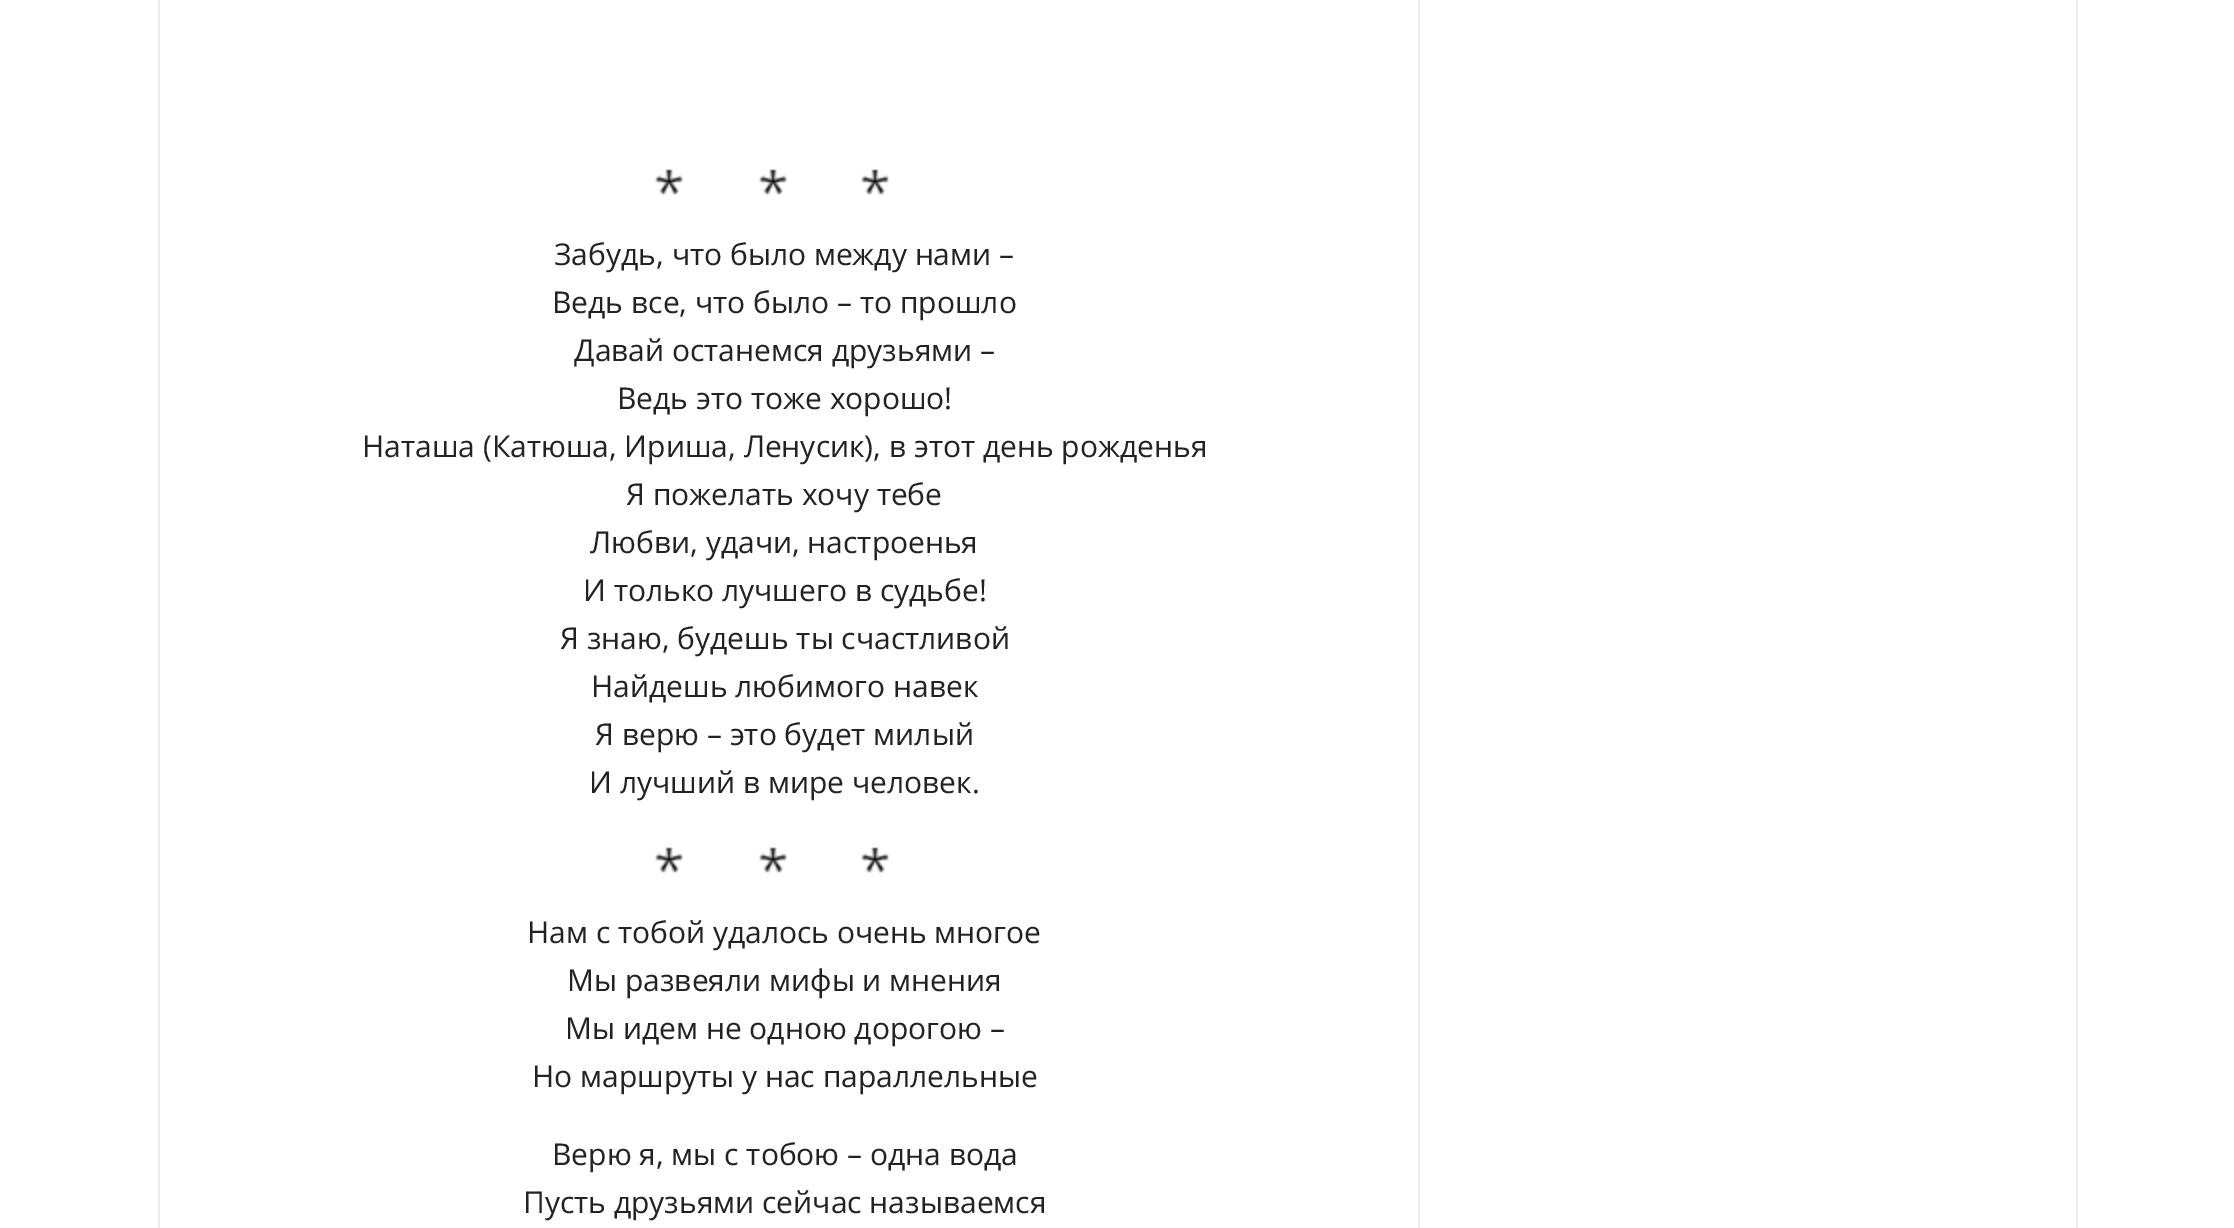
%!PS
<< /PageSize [2234 1228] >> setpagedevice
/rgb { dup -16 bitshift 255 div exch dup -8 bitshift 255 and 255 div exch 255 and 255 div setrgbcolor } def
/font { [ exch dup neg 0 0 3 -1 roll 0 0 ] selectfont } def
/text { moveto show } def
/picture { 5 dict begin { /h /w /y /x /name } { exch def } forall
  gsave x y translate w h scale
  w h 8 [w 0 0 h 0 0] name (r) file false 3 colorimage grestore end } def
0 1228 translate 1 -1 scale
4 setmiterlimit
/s1 { /OpenSans-Regular 30 font 16#222222 rgb } def
16#FFFFFF rgb
0 0 2234 1228 rectfill
16#EAEDF1 rgb
158 -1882 moveto 2078 -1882 lineto 2078 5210 lineto 2078 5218 2072 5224 2064 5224 curveto 172 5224 lineto 164 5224 158 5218 158 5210 curveto closepath 160 -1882 moveto 2076 -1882 lineto 2076 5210 lineto 2076 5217 2071 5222 2064 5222 curveto 172 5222 lineto 165 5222 160 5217 160 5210 curveto closepath eofill
1418 0 2 1228 rectfill
(pic1.raw) 655 169 28 26 picture
(pic1.raw) 759 169 28 26 picture
(pic1.raw) 861 169 28 26 picture
s1
(Забудь, что было между нами –) 554 265 text
(Ведь все, что было – то прошло) 552 313 text
(Давай останемся друзьями –) 574 361 text
(Ведь это тоже хорошо!) 617 409 text
(Наташа \(Катюша, Ириша, Ленусик\), в этот день рожденья) 362 457 text
(Я пожелать хочу тебе) 626 505 text
(Любви, удачи, настроенья) 590 553 text
(И только лучшего в судьбе!) 583 601 text
(Я знаю, будешь ты счастливой) 560 649 text
(Найдешь любимого навек) 591 697 text
(Я верю – это будет милый) 595 745 text
(И лучший в мире человек.) 589 793 text
(pic1.raw) 655 847 28 26 picture
(pic1.raw) 759 847 28 26 picture
(pic1.raw) 861 847 28 26 picture
(Нам с тобой удалось очень многое) 527 943 text
(Мы развеяли мифы и мнения) 567 991 text
(Мы идем не одною дорогою –) 565 1039 text
(Но маршруты у нас параллельные) 532 1087 text
(Верю я, мы с тобою – одна вода) 552 1165 text
(Пусть друзьями сейчас называемся) 523 1213 text
showpage
